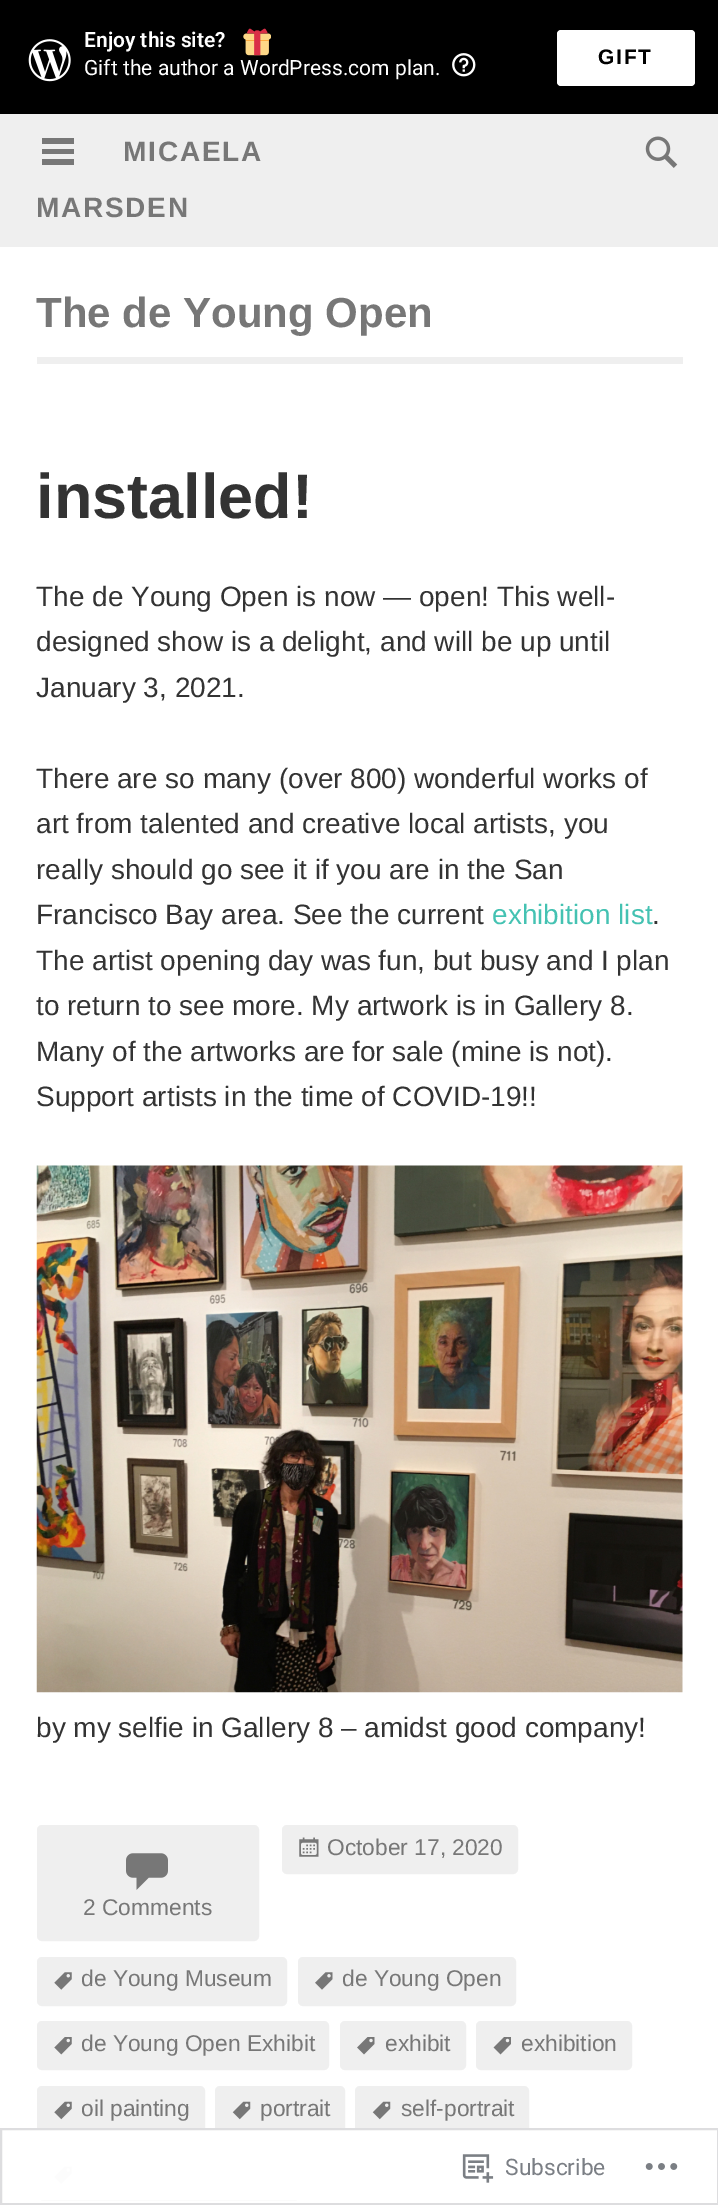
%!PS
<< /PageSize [718 2205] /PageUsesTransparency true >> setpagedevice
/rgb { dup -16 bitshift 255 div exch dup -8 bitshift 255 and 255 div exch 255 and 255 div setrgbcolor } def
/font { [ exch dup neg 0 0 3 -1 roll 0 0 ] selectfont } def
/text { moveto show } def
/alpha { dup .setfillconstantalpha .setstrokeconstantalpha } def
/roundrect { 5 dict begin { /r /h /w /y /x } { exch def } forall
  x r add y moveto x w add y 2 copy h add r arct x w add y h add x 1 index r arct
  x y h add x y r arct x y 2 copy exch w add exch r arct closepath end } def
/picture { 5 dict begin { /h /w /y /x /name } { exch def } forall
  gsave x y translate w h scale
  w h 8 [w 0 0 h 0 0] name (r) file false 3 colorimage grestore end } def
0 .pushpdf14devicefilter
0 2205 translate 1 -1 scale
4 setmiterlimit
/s1 { /Roboto-SemiBold 21 font 16#FFFFFF rgb } def
/s2 { /Roboto-Regular 21 font 16#FFFFFF rgb } def
/s3 { /Arimo-Bold 42 font 16#777777 rgb } def
/s4 { /Arimo-Bold 63 font 16#333333 rgb } def
/s5 { /Arimo-Regular 28 font 16#333333 rgb } def
/s6 { /Arimo-Regular 28 font 16#44C2B2 rgb } def
/s7 { /Arimo-Regular 22.75 font 16#777777 rgb } def
/s8 { /Roboto-Regular 22.75 font 16#7B7F85 rgb } def
16#FFFFFF rgb
0 0 718 2205 rectfill
16#000000 rgb
0 0 718 114 rectfill
(pic1.raw) 28 39 43 43 picture
s1
(Enjoy this site?) 84 47 text
(pic2.raw) 243 28 28 28 picture
s2
(Gift the author a WordPress.com plan.) 84 75 text
(pic3.raw) 452 53 24 24 picture
557 30 138 56 4 roundrect fill
/Arimo-Bold 21 font
16#000000 rgb
598 64 moveto 1.75 0 (GIFT) ashow
16#EFEFEF rgb
0 114 718 133 rectfill
16#777777 rgb
42 138 32 6 rectfill
42 149 32 5 rectfill
42 159 32 6 rectfill
/Arimo-Bold 28 font
123 161 moveto 1.75 0 (MICAELA) ashow
36 217 moveto 1.75 0 (MARSDEN) ashow
(pic4.raw) 645 136 33 32 picture
16#EFEFEF rgb
37 357 646 7 rectfill
s3
(The de Young Open) 36 327 text
s4
(installed!) 36 518 text
s5
(The de Young Open is now — open! This well-) 36 606 text
(designed show is a delight, and will be up until) 36 651 text
(January 3, 2021.) 36 697 text
(There are so many \(over 800\) wonderful works of) 36 788 text
(art from talented and creative local artists, you) 36 833 text
(really should go see it if you are in the San) 36 879 text
(Francisco Bay area. See the current) 36 924 text
s6
(exhibition list) 492 924 text
s5
(.) 652 924 text
(The artist opening day was fun, but busy and I plan) 36 970 text
(to return to see more. My artwork is in Gallery 8.) 36 1015 text
(Many of the artworks are for sale \(mine is not\).) 36 1061 text
(Support artists in the time of COVID-19!!) 36 1106 text
(pic5.raw) 36 1165 647 528 picture
(by my selfie in Gallery 8 – amidst good company!) 36 1737 text
16#EFEFEF rgb
283 1826 234 47 4 roundrect gsave fill grestore
2 setlinewidth
stroke
(pic6.raw) 299 1837 20 20 picture
s7
(October 17, 2020) 327 1855 text
16#EFEFEF rgb
38 1826 220 114 4 roundrect gsave fill grestore
stroke
(pic7.raw) 126 1853 42 37 picture
s7
(2 Comments) 83 1915 text
16#EFEFEF rgb
38 1958 248 47 4 roundrect gsave fill grestore
stroke
(pic8.raw) 54 1972 18 18 picture
s7
(de Young Museum) 81 1986 text
16#EFEFEF rgb
299 1958 216 47 4 roundrect gsave fill grestore
stroke
(pic9.raw) 315 1972 18 18 picture
s7
(de Young Open) 342 1986 text
16#EFEFEF rgb
38 2022 290 47 4 roundrect gsave fill grestore
stroke
(pic10.raw) 54 2037 18 18 picture
s7
(de Young Open Exhibit) 81 2051 text
16#EFEFEF rgb
341 2022 124 47 4 roundrect gsave fill grestore
stroke
(pic11.raw) 357 2037 18 18 picture
s7
(exhibit) 385 2051 text
16#EFEFEF rgb
477 2022 154 47 4 roundrect gsave fill grestore
stroke
(pic12.raw) 493 2037 18 18 picture
s7
(exhibition) 521 2051 text
16#EFEFEF rgb
38 2087 166 47 4 roundrect gsave fill grestore
stroke
(pic13.raw) 54 2101 18 19 picture
s7
(oil painting) 81 2116 text
16#EFEFEF rgb
216 2087 128 47 4 roundrect gsave fill grestore
stroke
(pic14.raw) 232 2101 19 19 picture
s7
(portrait) 260 2116 text
16#EFEFEF rgb
356 2087 172 47 4 roundrect gsave fill grestore
stroke
(pic14.raw) 372 2101 19 19 picture
s7
(self-portrait) 401 2116 text
16#EFEFEF rgb
38 2152 262 47 4 roundrect gsave fill grestore
stroke
(pic15.raw) 54 2166 18 18 picture
0.98 alpha
16#FFFFFF rgb
37 2130 492 70 rectfill
1 alpha
16#DDDDDF rgb
1 2129 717 75 rectstroke
(pic16.raw) 462 2154 32 29 picture
s8
(Subscribe) 505 2175 text
(pic17.raw) 645 2163 33 7 picture
.poppdf14devicefilter showpage
